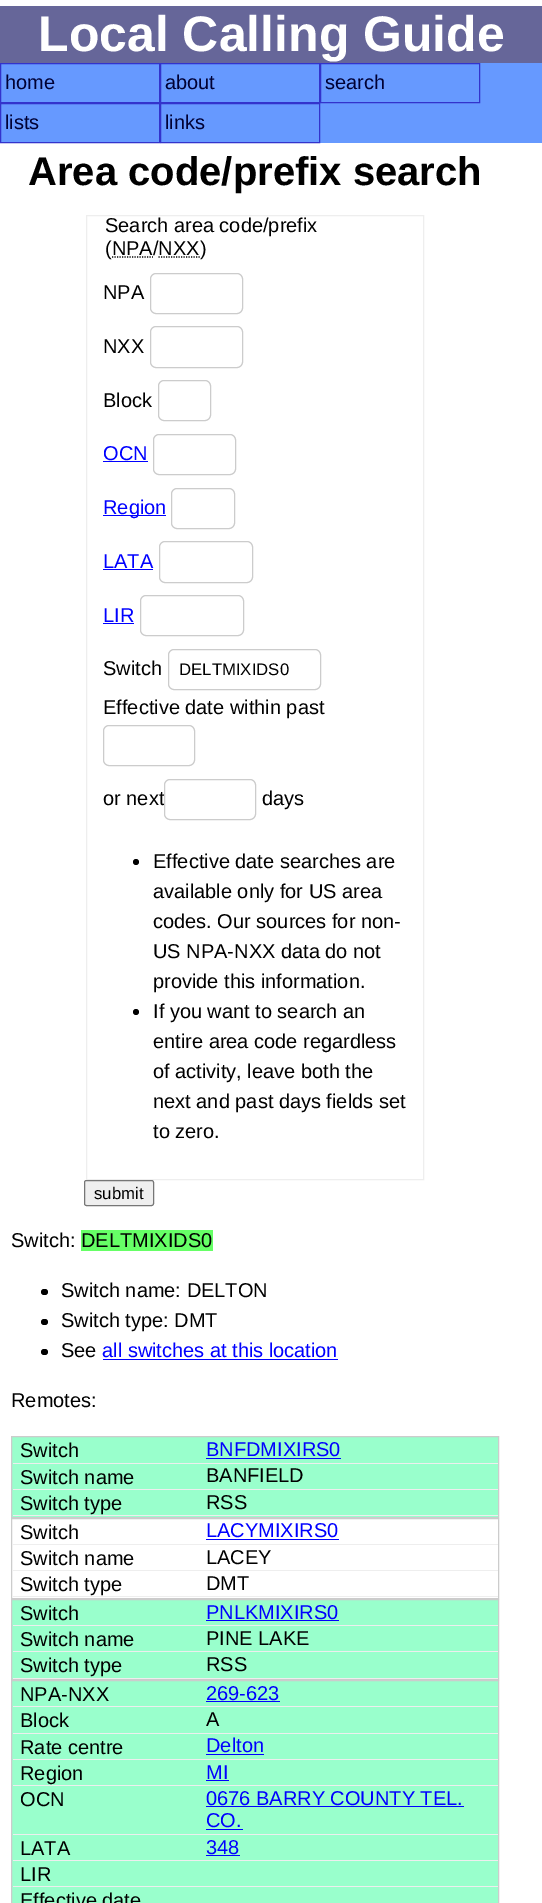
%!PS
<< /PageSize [542 1903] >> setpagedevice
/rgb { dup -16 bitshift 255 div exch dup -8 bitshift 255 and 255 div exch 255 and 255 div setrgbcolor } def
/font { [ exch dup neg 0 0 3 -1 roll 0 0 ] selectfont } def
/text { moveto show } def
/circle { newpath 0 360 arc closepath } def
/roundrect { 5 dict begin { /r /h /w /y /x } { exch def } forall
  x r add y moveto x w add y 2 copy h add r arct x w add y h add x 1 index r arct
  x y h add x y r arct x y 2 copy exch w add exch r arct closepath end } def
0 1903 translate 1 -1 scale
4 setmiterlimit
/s1 { /LiberationSans-Bold 50 font 16#FFFFFF rgb } def
/s2 { /LiberationSans-Regular 20 font 16#000033 rgb } def
/s3 { /LiberationSans-Bold 40 font 16#000000 rgb } def
/s4 { /LiberationSans-Regular 20 font 16#000000 rgb } def
/s5 { /LiberationSans-Regular 20 font 16#0000FF rgb } def
/s6 { /LiberationSans-Regular 16.75 font 16#000000 rgb } def
16#FFFFFF rgb
0 0 542 1903 rectfill
16#666699 rgb
0 6 542 57 rectfill
s1
(Local Calling Guide) 38 51 text
16#6699FF rgb
1 63 541 80 rectfill
16#3333CC rgb
0.5 63.5 159 39 rectstroke
s2
(home) 5 89 text
16#3333CC rgb
160.5 63.5 159 39 rectstroke
s2
(about) 165 89 text
16#3333CC rgb
320.5 63.5 159 39 rectstroke
s2
(search) 325 89 text
16#3333CC rgb
0.5 103.5 159 39 rectstroke
s2
(lists) 5 129 text
16#3333CC rgb
160.5 103.5 159 39 rectstroke
s2
(links) 165 129 text
s3
(Area code/prefix search) 28 185 text
16#EEEEEE rgb
86.5 215.5 337 964 rectstroke
s4
(Search area code/prefix) 105 232 text
(\(NPA/NXX) 105 255 text
1.2 setlinewidth
[1.25 1.25] 0 setdash
158.5 257 moveto 200 257 lineto stroke
(\)) 200 255 text
112 257 moveto 153 257 lineto stroke
(NPA) 103 299 text
16#CCCCCC rgb
1 setlinewidth
[] 0 setdash
150.5 273.5 92 40 5.5 roundrect stroke
s4
(NXX) 103 353 text
16#CCCCCC rgb
150.5 326.5 92 41 5.5 roundrect stroke
s4
(Block) 103 407 text
16#CCCCCC rgb
158.5 380.5 52 40 5.5 roundrect stroke
s5
(OCN) 103 460 text
103 461 45 1 rectfill
16#CCCCCC rgb
153.5 434.5 82 40 5.5 roundrect stroke
16#0000FF rgb
103 515 63 1 rectfill
(Region) 103 514 text
16#CCCCCC rgb
171.5 488.5 63 40 5.5 roundrect stroke
s5
(LATA) 103 568 text
103 569 50 1 rectfill
16#CCCCCC rgb
159.5 541.5 93 41 5.5 roundrect stroke
s5
(LIR) 103 622 text
103 623 31 1 rectfill
16#CCCCCC rgb
140.5 595.5 103 40 5.5 roundrect stroke
s4
(Switch) 103 675 text
16#CCCCCC rgb
168.5 649.5 152 40 5.5 roundrect stroke
s6
(DELTMIXIDS0) 179 675 text
s4
(Effective date within past) 103 714 text
16#CCCCCC rgb
103.5 725.5 91 40 5.5 roundrect stroke
s4
(or next) 103 805 text
16#CCCCCC rgb
164.5 779.5 91 40 5.5 roundrect stroke
s4
(days) 262 805 text
136 862 3 circle fill
(Effective date searches are) 153 868 text
(available only for US area) 153 898 text
(codes. Our sources for non-) 153 928 text
(US NPA-NXX data do not) 153 958 text
(provide this information.) 153 988 text
136 1012 3 circle fill
(If you want to search an) 153 1018 text
(entire area code regardless) 153 1048 text
(of activity, leave both the) 153 1078 text
(next and past days fields set) 153 1108 text
(to zero.) 153 1138 text
16#EFEFEF rgb
84.5 1180.5 69 25 2 roundrect gsave fill grestore
16#767676 rgb
stroke
s6
(submit) 94 1199 text
s4
(Switch:) 11 1247 text
16#66FF66 rgb
81 1230 132 21 rectfill
s4
(DELTMIXIDS0) 81 1247 text
41 1289 7 6 3 roundrect fill
(Switch name: DELTON) 61 1297 text
41 1319 7 6 3 roundrect fill
(Switch type: DMT) 61 1327 text
41 1349 7 6 3 roundrect fill
(See) 61 1357 text
s5
(all switches at this location) 102 1357 text
103 1359 235 1 rectfill
s4
(Remotes:) 11 1407 text
16#99FFCC rgb
11.5 1436.5 moveto 498.5 1436.5 lineto 498.5 1517.5 lineto 11.5 1517.5 lineto closepath gsave fill grestore
16#CCCCCC rgb
stroke
16#EEEEEE rgb
13 1463 485 1 rectfill
s4
(Switch) 20 1457 text
s5
(BNFDMIXIRS0) 206 1456 text
206 1458 135 1 rectfill
16#EEEEEE rgb
13 1489 485 1 rectfill
s4
(Switch name) 20 1484 text
(BANFIELD) 206 1482 text
16#EEEEEE rgb
13 1515 485 1 rectfill
s4
(Switch type) 20 1510 text
(RSS) 206 1509 text
16#CCCCCC rgb
11.5 1518.5 487 80 rectstroke
16#EEEEEE rgb
13 1544 485 1 rectfill
s4
(Switch) 20 1539 text
s5
(LACYMIXIRS0) 206 1537 text
206 1539 133 1 rectfill
16#EEEEEE rgb
13 1570 485 1 rectfill
s4
(Switch name) 20 1565 text
(LACEY) 206 1564 text
16#EEEEEE rgb
13 1596 485 1 rectfill
s4
(Switch type) 20 1591 text
(DMT) 206 1590 text
16#99FFCC rgb
11.5 1599.5 moveto 498.5 1599.5 lineto 498.5 1679.5 lineto 11.5 1679.5 lineto closepath gsave fill grestore
16#CCCCCC rgb
stroke
16#EEEEEE rgb
13 1625 485 1 rectfill
s4
(Switch) 20 1620 text
s5
(PNLKMIXIRS0) 206 1619 text
206 1620 133 1 rectfill
16#EEEEEE rgb
13 1651 485 1 rectfill
s4
(Switch name) 20 1646 text
(PINE LAKE) 206 1645 text
16#EEEEEE rgb
13 1678 485 1 rectfill
s4
(Switch type) 20 1672 text
(RSS) 206 1671 text
16#99FFCC rgb
11.5 1680.5 moveto 498.5 1680.5 lineto 498.5 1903.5 lineto 11.5 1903.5 lineto closepath gsave fill grestore
16#CCCCCC rgb
stroke
16#EEEEEE rgb
13 1706 485 1 rectfill
s4
(NPA-NXX) 20 1701 text
s5
(269-623) 206 1700 text
206 1701 74 1 rectfill
16#EEEEEE rgb
13 1733 485 1 rectfill
s4
(Block) 20 1727 text
(A) 206 1726 text
16#EEEEEE rgb
13 1759 485 1 rectfill
s4
(Rate centre) 20 1754 text
s5
(Delton) 206 1752 text
206 1754 58 1 rectfill
16#EEEEEE rgb
13 1785 485 1 rectfill
s4
(Region) 20 1780 text
s5
(MI) 206 1779 text
206 1780 23 1 rectfill
16#EEEEEE rgb
13 1834 485 1 rectfill
s4
(OCN) 20 1806 text
s5
(0676 BARRY COUNTY TEL.) 206 1805 text
206 1806 258 1 rectfill
(CO.) 206 1827 text
206 1829 37 1 rectfill
16#EEEEEE rgb
13 1860 485 1 rectfill
s4
(LATA) 20 1855 text
s5
(348) 206 1854 text
206 1855 34 1 rectfill
16#EEEEEE rgb
13 1886 485 1 rectfill
s4
(LIR) 20 1881 text
(Effective date) 20 1907 text
showpage
